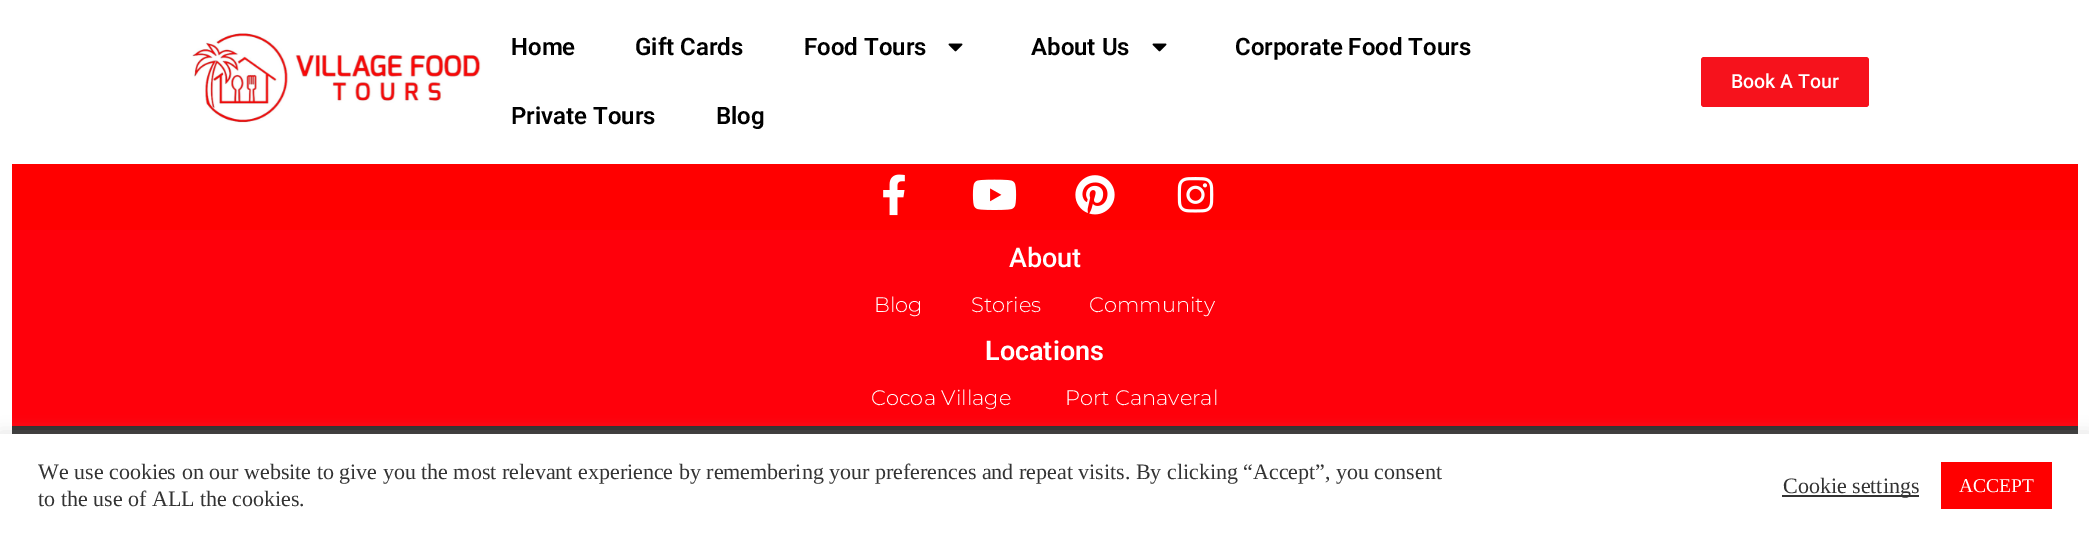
%!PS
<< /PageSize [2089 536] /PageUsesTransparency true >> setpagedevice
/rgb { dup -16 bitshift 255 div exch dup -8 bitshift 255 and 255 div exch 255 and 255 div setrgbcolor } def
/font { [ exch dup neg 0 0 3 -1 roll 0 0 ] selectfont } def
/text { moveto show } def
/alpha { dup .setfillconstantalpha .setstrokeconstantalpha } def
/roundrect { 5 dict begin { /r /h /w /y /x } { exch def } forall
  x r add y moveto x w add y 2 copy h add r arct x w add y h add x 1 index r arct
  x y h add x y r arct x y 2 copy exch w add exch r arct closepath end } def
/shadow { 12 dict begin { /a /b /q /h /w /y /x } { exch def } forall gsave /was 0 def
  9 -2 -9 { dup b mul 4 div /e exch def 1 sub .425 mul 2.718 exch exp 1 add a .99 .min exch div /now exch def
    1 1 now sub 1 was sub div sub alpha /was now def
    w h .min e 2 mul add 0 gt { x e sub y e sub w e 2 mul add h e 2 mul add
      q e add b .6 mul add w h .min 2 div e add .min 0 .max roundrect fill } if } for grestore end } def
/picture { 5 dict begin { /h /w /y /x /name } { exch def } forall
  gsave x y translate w h scale
  w h 8 [w 0 0 h 0 0] name (r) file false 3 colorimage grestore end } def
0 .pushpdf14devicefilter
0 536 translate 1 -1 scale
4 setmiterlimit
/s1 { /Roboto-SemiBold 24 font 16#000000 rgb } def
/s2 { /Roboto-Medium 19.5 font 16#FFFFFF rgb } def
/s3 { /Roboto-Medium 27 font 16#FFFFFF rgb } def
/s4 { /Montserrat-Light 21 font 16#FFFFFF rgb } def
/s5 { /Roboto-SemiBold 27 font 16#FFFFFF rgb } def
/s6 { /LiberationSerif-Regular 22 font 16#333333 rgb } def
/s7 { /LiberationSerif-Regular 19.5 font 16#FFFFFF rgb } def
16#FFFFFF rgb
0 0 2089 536 rectfill
(pic1.raw) 192 33 289 90 picture
s1
(Home) 511 55 text
(Gift Cards) 635 55 text
(Food Tours) 804 55 text
(pic2.raw) 948 43 15 9 picture
(About Us) 1031 55 text
(pic2.raw) 1152 43 15 9 picture
(Corporate Food Tours) 1235 55 text
(Private Tours) 511 124 text
(Blog) 716 124 text
16#F6121C rgb
1701 57 168 50 3 roundrect fill
s2
(Book A Tour) 1731 88 text
16#FF0000 rgb
12 164 2066 66 rectfill
(pic3.raw) 883 174 22 42 picture
(pic4.raw) 972 179 45 31 picture
(pic5.raw) 1075 175 40 40 picture
(pic6.raw) 1177 177 37 36 picture
16#FF000B rgb
12 230 2066 196 rectfill
s3
(About) 1009 267 text
s4
(Blog) 874 312 text
(Stories) 971 312 text
(Community) 1089 312 text
s5
(Locations) 985 360 text
s4
(Cocoa Village) 871 405 text
(Port Canaveral) 1065 405 text
16#2B2B2B rgb
12 426 2066 8 rectfill
16#ACABAB rgb
0 432 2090 104 0 7.5 0.3 shadow
16#FFFFFF rgb
0 434 2089 102 rectfill
s6
(We use cookies on our website to give you the most relevant experience by remembering your preferences and repeat visits. By clicking “Accept”, you consent) 38 479 text
(to the use of ALL the cookies.) 38 506 text
1782 495 137 2 rectfill
(Cookie settings) 1783 493 text
16#FF0000 rgb
1941 462 111 47 rectfill
s7
(ACCEPT) 1959 492 text
.poppdf14devicefilter showpage
